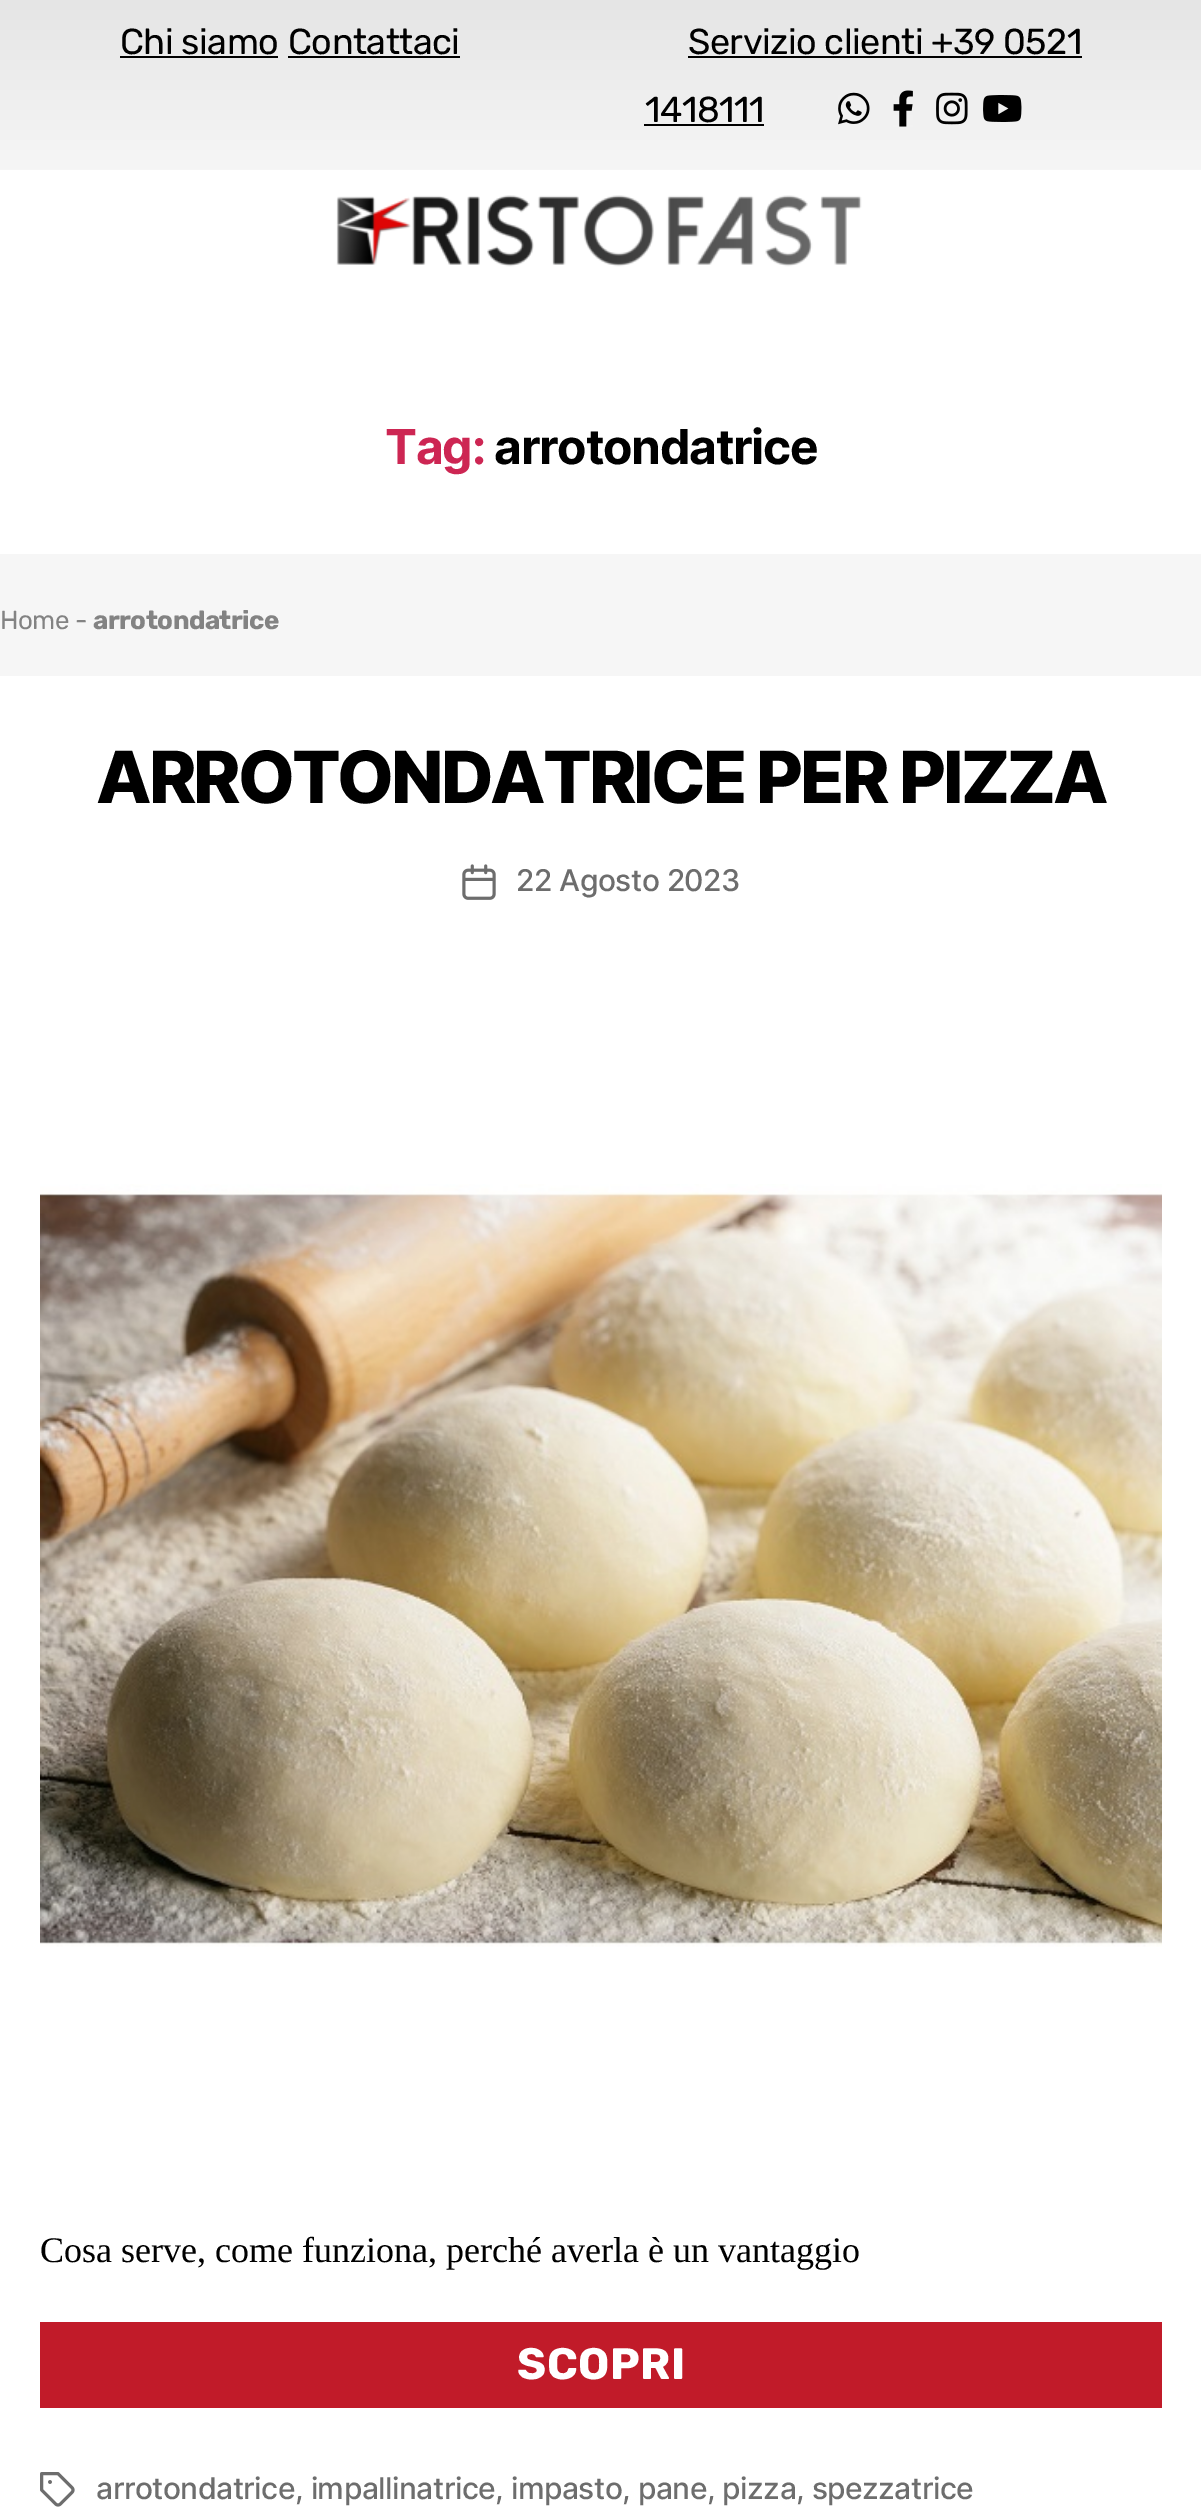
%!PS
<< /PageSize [1201 2508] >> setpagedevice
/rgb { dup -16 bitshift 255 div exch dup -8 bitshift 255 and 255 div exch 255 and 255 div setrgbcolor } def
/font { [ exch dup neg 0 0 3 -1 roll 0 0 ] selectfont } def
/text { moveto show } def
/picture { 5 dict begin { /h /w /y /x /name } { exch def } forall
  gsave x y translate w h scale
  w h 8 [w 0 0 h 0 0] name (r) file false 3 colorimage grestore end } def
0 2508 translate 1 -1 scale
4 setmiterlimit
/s1 { /LiberationSerif-Regular 36 font 16#000000 rgb } def
16#FFFFFF rgb
0 0 1201 2508 rectfill
gsave 0 0 moveto 1201 0 lineto 1201 170 lineto 0 170 lineto closepath clip newpath
<< /ShadingType 2 /ColorSpace /DeviceRGB /Coords [601 0 601 170] /Extend [true true] /Function << /FunctionType 2 /Domain [0 1] /C0 [0.898 0.898 0.898] /C1 [0.965 0.965 0.965] /N 1 >> >> shfill grestore
/Rubik-Regular 36 font
16#000000 rgb
120 54 moveto -0.55 0 (Chi siamo) ashow
120 56 158 2 rectfill
288 54 moveto -0.55 0 (Contattaci) ashow
288 56 172 2 rectfill
688 54 moveto -0.55 0 (Servizio clienti +39 0521) ashow
688 56 394 2 rectfill
645 122 moveto -0.55 0 (1418111) ashow
644 124 120 2 rectfill
(pic1.raw) 838 92 32 33 picture
(pic2.raw) 893 90 20 37 picture
(pic3.raw) 936 92 32 33 picture
(pic4.raw) 983 95 39 27 picture
(pic5.raw) 336 195 526 72 picture
/Inter-Bold 48 font
16#CD2653 rgb
385 464 moveto -1.25 0 (Tag:) ashow
16#000000 rgb
494 464 moveto -1.25 0 (arrotondatrice) ashow
16#F6F6F6 rgb
0 554 1201 122 rectfill
/Rubik-Regular 26 font
16#838383 rgb
0 629 moveto -0.55 0 (Home -) ashow
/Rubik-Bold 26 font
93 629 moveto -0.55 0 (arrotondatrice) ashow
/Inter-ExtraBold 72 font
16#000000 rgb
96 803 moveto -3 0 (ARROTONDATRICE PER PIZZA) ashow
(pic6.raw) 462 864 34 36 picture
/Inter-Medium 30 font
16#6D6D6D rgb
516 891 moveto -0.5 0 (22 Agosto 2023) ashow
(pic7.raw) 40 1184 1122 763 picture
s1
(Cosa serve, come funziona, perché averla è un vantaggio) 40 2262 text
16#C11B29 rgb
40 2322 1122 86 rectfill
/Rubik-Bold 44 font
16#FFFFFF rgb
517 2379 moveto 0.5 0 (SCOPRI) ashow
(pic8.raw) 40 2472 35 35 picture
/Inter-Medium 30 font
16#6D6D6D rgb
96 2499 moveto -0.5 0 (arrotondatrice, impallinatrice, impasto, pane, pizza, spezzatrice) ashow
showpage
